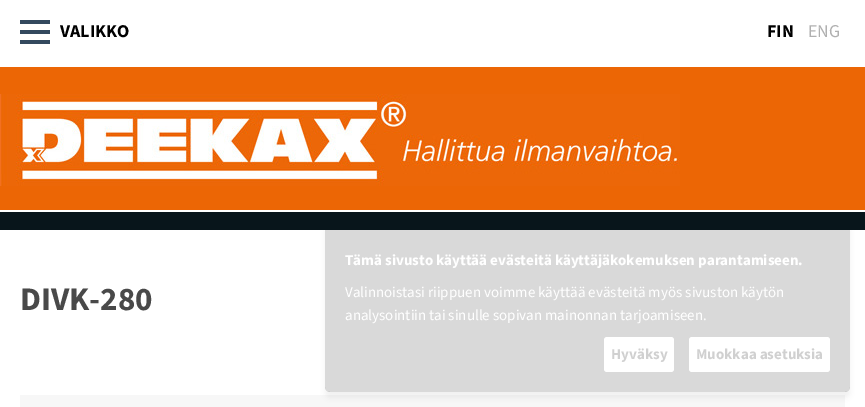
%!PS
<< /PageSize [865 407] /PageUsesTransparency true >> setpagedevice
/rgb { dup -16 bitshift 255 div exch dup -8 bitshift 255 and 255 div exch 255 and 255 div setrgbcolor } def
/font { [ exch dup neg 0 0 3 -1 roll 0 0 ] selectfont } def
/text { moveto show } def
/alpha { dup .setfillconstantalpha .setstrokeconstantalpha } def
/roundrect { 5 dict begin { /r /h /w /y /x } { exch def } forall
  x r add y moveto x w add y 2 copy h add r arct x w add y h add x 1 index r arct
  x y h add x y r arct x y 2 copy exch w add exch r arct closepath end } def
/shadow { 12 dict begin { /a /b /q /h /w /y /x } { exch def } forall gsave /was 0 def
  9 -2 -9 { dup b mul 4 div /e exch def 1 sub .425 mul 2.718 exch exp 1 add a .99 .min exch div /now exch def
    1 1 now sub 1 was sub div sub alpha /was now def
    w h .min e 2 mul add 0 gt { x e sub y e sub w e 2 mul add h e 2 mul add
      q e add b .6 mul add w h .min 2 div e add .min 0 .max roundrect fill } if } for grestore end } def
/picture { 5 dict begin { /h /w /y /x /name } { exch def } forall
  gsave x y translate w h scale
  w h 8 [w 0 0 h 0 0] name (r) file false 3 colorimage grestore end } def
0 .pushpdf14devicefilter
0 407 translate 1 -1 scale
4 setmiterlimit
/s1 { /SourceSans3-ExtraLight 18 font 16#000000 rgb } def
/s2 { /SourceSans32-ExtraLight 18 font 16#B0B0B0 rgb } def
/s3 { /SourceSans3-ExtraLight 33 font 16#494949 rgb } def
/s4 { /SourceSans3-ExtraLight 15 font 16#FFFFFF rgb } def
/s5 { /SourceSans32-ExtraLight 15 font 16#FFFFFF rgb } def
/s6 { /SourceSans3-ExtraLight 15 font 16#D0D0D0 rgb } def
16#FFFFFF rgb
0 0 865 407 rectfill
s1
(FIN) 767 37 text
s2
(ENG) 808 37 text
16#EC6605 rgb
0 67 865 143 rectfill
(pic1.raw) 0 94 680 92 picture
16#F7F7F7 rgb
20 395 825 12 rectfill
gsave
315 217 moveto 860 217 lineto 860 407 lineto 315 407 lineto closepath 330 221 moveto 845 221 lineto 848 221 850 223 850 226 curveto 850 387 lineto 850 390 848 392 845 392 curveto 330 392 lineto 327 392 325 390 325 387 curveto 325 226 lineto 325 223 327 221 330 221 curveto closepath eoclip newpath
16#000000 rgb
325 227 525 171 5 3 0.05 shadow
grestore
0.19 alpha
16#333333 rgb
325 221 525 171 5 roundrect fill
1 alpha
16#08151B rgb
0 212 865 18 rectfill
s3
(DIVK-280) 20 310 text
16#34495E rgb
20 30 30 4 rectfill
20 20 30 4 rectfill
20 40 30 4 rectfill
s1
(VALIKKO) 60 37 text
s4
(Tämä sivusto käyttää evästeitä käyttäjäkokemuksen parantamiseen.) 345 265 text
s5
(Valinnoistasi riippuen voimme käyttää evästeitä myös sivuston käytön) 345 297 text
(analysointiin tai sinulle sopivan mainonnan tarjoamiseen.) 345 320 text
604 337 70 35 3 roundrect fill
s6
(Hyväksy) 611 359 text
16#FFFFFF rgb
689 337 141 35 3 roundrect fill
s6
(Muokkaa asetuksia) 696 359 text
.poppdf14devicefilter showpage
